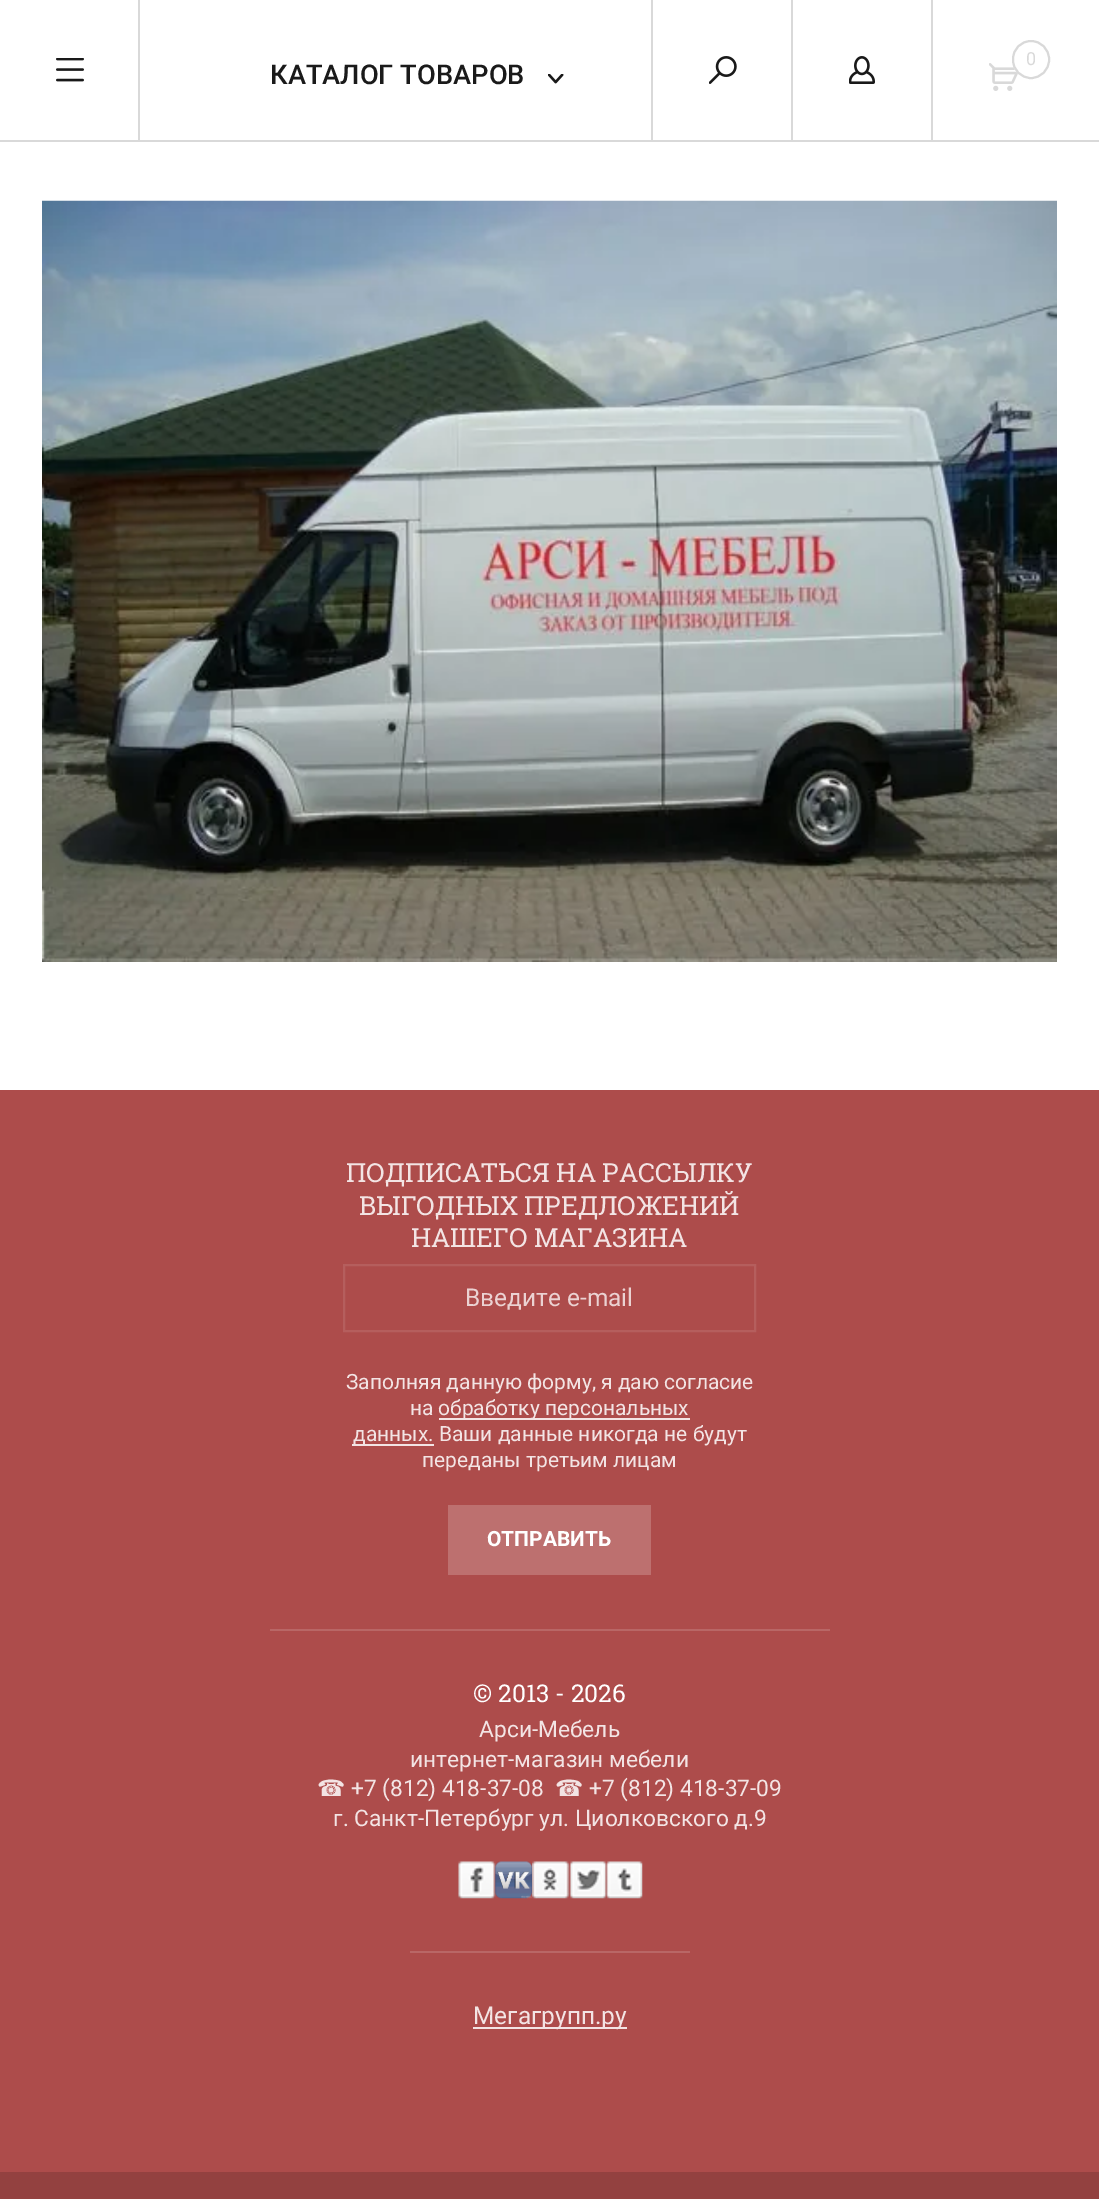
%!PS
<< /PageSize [1099 2199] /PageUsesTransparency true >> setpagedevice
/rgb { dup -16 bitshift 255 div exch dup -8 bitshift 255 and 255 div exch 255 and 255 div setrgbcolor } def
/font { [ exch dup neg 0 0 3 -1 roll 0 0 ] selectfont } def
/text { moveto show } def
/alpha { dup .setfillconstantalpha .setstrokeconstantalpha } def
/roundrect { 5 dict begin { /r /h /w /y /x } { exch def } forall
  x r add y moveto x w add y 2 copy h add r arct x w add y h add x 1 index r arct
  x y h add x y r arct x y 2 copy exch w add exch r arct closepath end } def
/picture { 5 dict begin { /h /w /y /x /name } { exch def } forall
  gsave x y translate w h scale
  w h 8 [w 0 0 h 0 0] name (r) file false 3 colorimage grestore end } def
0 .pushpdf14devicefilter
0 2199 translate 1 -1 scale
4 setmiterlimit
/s1 { /Roboto-Regular 18 font 16#D9D9D9 rgb } def
/s2 { /Roboto-Medium 27.25 font 16#1A1A1A rgb } def
/s3 { /RobotoSlab-Regular 26.25 font 16#F3E4E4 rgb } def
/s4 { /Roboto-Regular 24.5 font 16#EBD2D2 rgb } def
/s5 { /Roboto-Regular 21 font 16#F3E4E4 rgb } def
/s6 { /Roboto-Bold 21 font 16#FFFFFF rgb } def
/s7 { /RobotoSlab-Regular 24.5 font 16#FFFFFF rgb } def
/s8 { /Roboto-Regular 22.75 font 16#F3E4E4 rgb } def
/s9 { /DejaVuSans-Regular 22.75 font 16#F3E4E4 rgb } def
/s10 { /Roboto-Regular 24.5 font 16#F3E4E4 rgb } def
16#FFFFFF rgb
0 0 1099 2199 rectfill
16#D9D9D9 rgb
0 140 1099 2 rectfill
(pic1.raw) 56 58 28 24 picture
138 0 2 140 rectfill
651 0 2 140 rectfill
(pic2.raw) 709 56 28 28 picture
(pic3.raw) 849 56 26 28 picture
791 0 2 140 rectfill
(pic4.raw) 989 63 29 28 picture
931 0 2 140 rectfill
16#FFFFFF rgb
1012 40 38 39 19 roundrect fill
0.15 alpha
16#000000 rgb
2 setlinewidth
1013 41 36 37 18 roundrect stroke
1 alpha
s1
(0) 1026 65 text
s2
(КАТАЛОГ ТОВАРОВ) 270 84 text
(pic5.raw) 548 74 16 10 picture
(pic6.raw) 42 200 1015 762 picture
16#AD4C4B rgb
0 1090 1099 1082 rectfill
16#934140 rgb
0 2172 1099 27 rectfill
s3
(ПОДПИСАТЬСЯ НА РАССЫЛКУ) 346 1182 text
(ВЫГОДНЫХ ПРЕДЛОЖЕНИЙ) 359 1215 text
(НАШЕГО МАГАЗИНА) 411 1247 text
16#B55E5D rgb
344 1265 411 66 rectstroke
s4
(Введите e-mail) 465 1306 text
s5
(Заполняя данную форму, я даю согласие) 346 1389 text
(на) 410 1415 text
439 1418 251 2 rectfill
(обработку персональных) 438 1415 text
352 1444 82 2 rectfill
(данных. Ваши данные никогда не будут) 353 1441 text
(переданы третьим лицам) 422 1467 text
16#BD706F rgb
448 1505 203 70 rectfill
s6
(ОТПРАВИТЬ) 487 1546 text
16#B96766 rgb
270 1629 560 2 rectfill
s7
(© 2013 - 2026) 473 1702 text
s8
(Арси-Мебель) 479 1737 text
(интернет-магазин мебели) 410 1767 text
s9
(☎) 317 1796 text
s8
(+7 \(812\) 418-37-08) 351 1796 text
s9
(☎) 555 1796 text
s8
(+7 \(812\) 418-37-09) 589 1796 text
(г. Санкт-Петербург ул. Циолковского д.9) 333 1826 text
16#B96766 rgb
410 1951 280 2 rectfill
(pic7.raw) 458 1861 38 38 picture
(pic8.raw) 495 1861 37 38 picture
(pic9.raw) 532 1861 37 38 picture
(pic10.raw) 569 1861 37 38 picture
(pic11.raw) 605 1861 38 38 picture
16#F3E4E4 rgb
473 2027 154 2 rectfill
s10
(Мегагрупп.ру) 473 2024 text
.poppdf14devicefilter showpage
